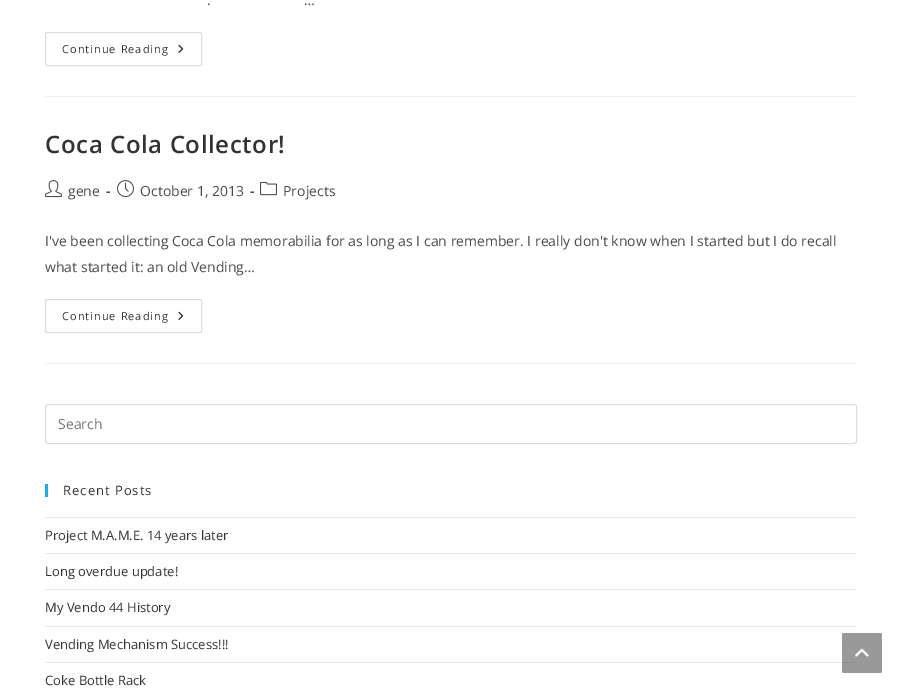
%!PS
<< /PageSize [902 693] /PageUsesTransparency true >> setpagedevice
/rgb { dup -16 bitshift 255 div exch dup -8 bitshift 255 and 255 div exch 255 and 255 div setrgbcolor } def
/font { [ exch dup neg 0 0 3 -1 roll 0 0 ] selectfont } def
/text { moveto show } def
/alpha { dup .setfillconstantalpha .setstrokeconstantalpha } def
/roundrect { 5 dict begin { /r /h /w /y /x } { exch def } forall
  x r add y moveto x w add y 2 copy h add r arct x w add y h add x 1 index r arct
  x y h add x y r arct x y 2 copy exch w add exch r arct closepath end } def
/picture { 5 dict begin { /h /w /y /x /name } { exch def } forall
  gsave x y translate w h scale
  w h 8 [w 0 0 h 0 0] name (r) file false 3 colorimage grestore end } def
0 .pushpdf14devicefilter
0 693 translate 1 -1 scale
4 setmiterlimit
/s1 { /OpenSans-Regular 14 font 16#4A4A4A rgb } def
/s2 { /OpenSans-Bold 14 font 16#4A4A4A rgb } def
/s3 { /OpenSans-Regular 14 font 16#757575 rgb } def
/s4 { /OpenSans-Regular 13 font 16#333333 rgb } def
16#FFFFFF rgb
0 0 902 693 rectfill
16#F1F1F1 rgb
45 96 812 1 rectfill
s1
(.) 207 5 text
(…) 304 5 text
16#DDDDDD rgb
45.5 32.5 156 33 1.5 roundrect stroke
/OpenSans-Regular 11 font
16#333333 rgb
62 53 moveto 1 0 (Continue Reading) ashow
(pic1.raw) 178 44 6 9 picture
16#F1F1F1 rgb
45 363 812 1 rectfill
/OpenSans-SemiBold 24 font
16#333333 rgb
45 153 moveto 0.6 0 (Coca Cola Collector!) ashow
(pic2.raw) 45 180 17 18 picture
s1
(gene) 68 196 text
s2
(-) 106 196 text
(pic3.raw) 117 180 17 18 picture
s1
(October 1, 2013) 140 196 text
s2
(-) 250 196 text
(pic4.raw) 260 181 17 15 picture
s1
(Projects) 283 196 text
(I've been collecting Coca Cola memorabilia for as long as I can remember. I really don't know when I started but I do recall) 45 246 text
(what started it: an old Vending…) 45 272 text
16#DDDDDD rgb
45.5 299.5 156 33 1.5 roundrect stroke
/OpenSans-Regular 11 font
16#333333 rgb
62 320 moveto 1 0 (Continue Reading) ashow
(pic1.raw) 178 311 6 9 picture
16#DDDDDD rgb
45.5 404.5 811 39 2.5 roundrect stroke
s3
(Search) 58 429 text
16#13AFF0 rgb
45 484 3 13 rectfill
/OpenSans-Regular 13 font
16#333333 rgb
63 495 moveto 1 0 (Recent Posts) ashow
16#E9E9E9 rgb
45 517 812 1 rectfill
45 553 812 1 rectfill
s4
(Project M.A.M.E. 14 years later) 45 540 text
16#E9E9E9 rgb
45 589 812 1 rectfill
s4
(Long overdue update!) 45 576 text
16#E9E9E9 rgb
45 626 812 1 rectfill
s4
(My Vendo 44 History) 45 612 text
16#E9E9E9 rgb
45 662 812 1 rectfill
s4
(Vending Mechanism Success!!!) 45 649 text
(Coke Bottle Rack) 45 685 text
0.4 alpha
16#000000 rgb
842 633 40 40 2 roundrect fill
1 alpha
(pic5.raw) 855 648 14 9 picture
.poppdf14devicefilter showpage
